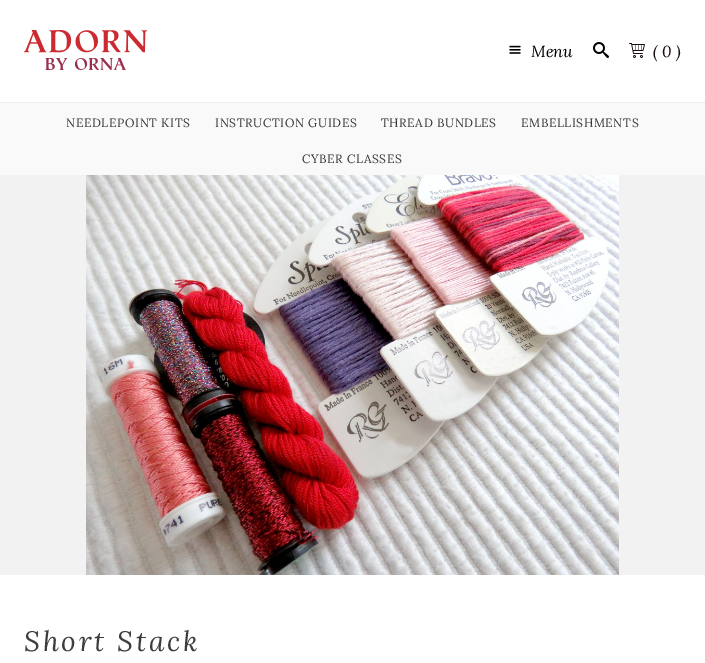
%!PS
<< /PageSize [705 663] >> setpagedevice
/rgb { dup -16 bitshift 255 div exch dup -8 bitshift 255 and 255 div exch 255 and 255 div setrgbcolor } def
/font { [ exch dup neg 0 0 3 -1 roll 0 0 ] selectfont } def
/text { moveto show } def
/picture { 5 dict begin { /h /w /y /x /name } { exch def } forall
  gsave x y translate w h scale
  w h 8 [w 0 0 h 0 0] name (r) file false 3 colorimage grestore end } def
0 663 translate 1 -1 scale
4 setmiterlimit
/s1 { /Lora-Italic 16 font 16#000000 rgb } def
/s2 { /Lora-Italic 16 font 16#1A0F0E rgb } def
16#FFFFFF rgb
0 0 705 663 rectfill
16#EEEEEE rgb
0 102 705 1 rectfill
(pic1.raw) 24 30 123 40 picture
(pic2.raw) 509 45 12 9 picture
s1
(Menu) 531 57 text
(pic3.raw) 593 42 16 16 picture
(pic4.raw) 629 43 16 15 picture
s2
(\( 0 \)) 653 57 text
16#F9F9F9 rgb
0 103 705 72 rectfill
/Lora-Regular 12 font
16#333333 rgb
66 127 moveto 0.6 0 (NEEDLEPOINT KITS) ashow
215 127 moveto 0.6 0 (INSTRUCTION GUIDES) ashow
381 127 moveto 0.6 0 (THREAD BUNDLES) ashow
521 127 moveto 0.6 0 (EMBELLISHMENTS) ashow
302 163 moveto 0.6 0 (CYBER CLASSES) ashow
16#F2F2F2 rgb
0 175 705 400 rectfill
(pic5.raw) 86 175 533 400 picture
/Lora-Italic 28 font
16#3D3D3D rgb
24 651 moveto 2.75 0 (Short Stack) ashow
showpage
